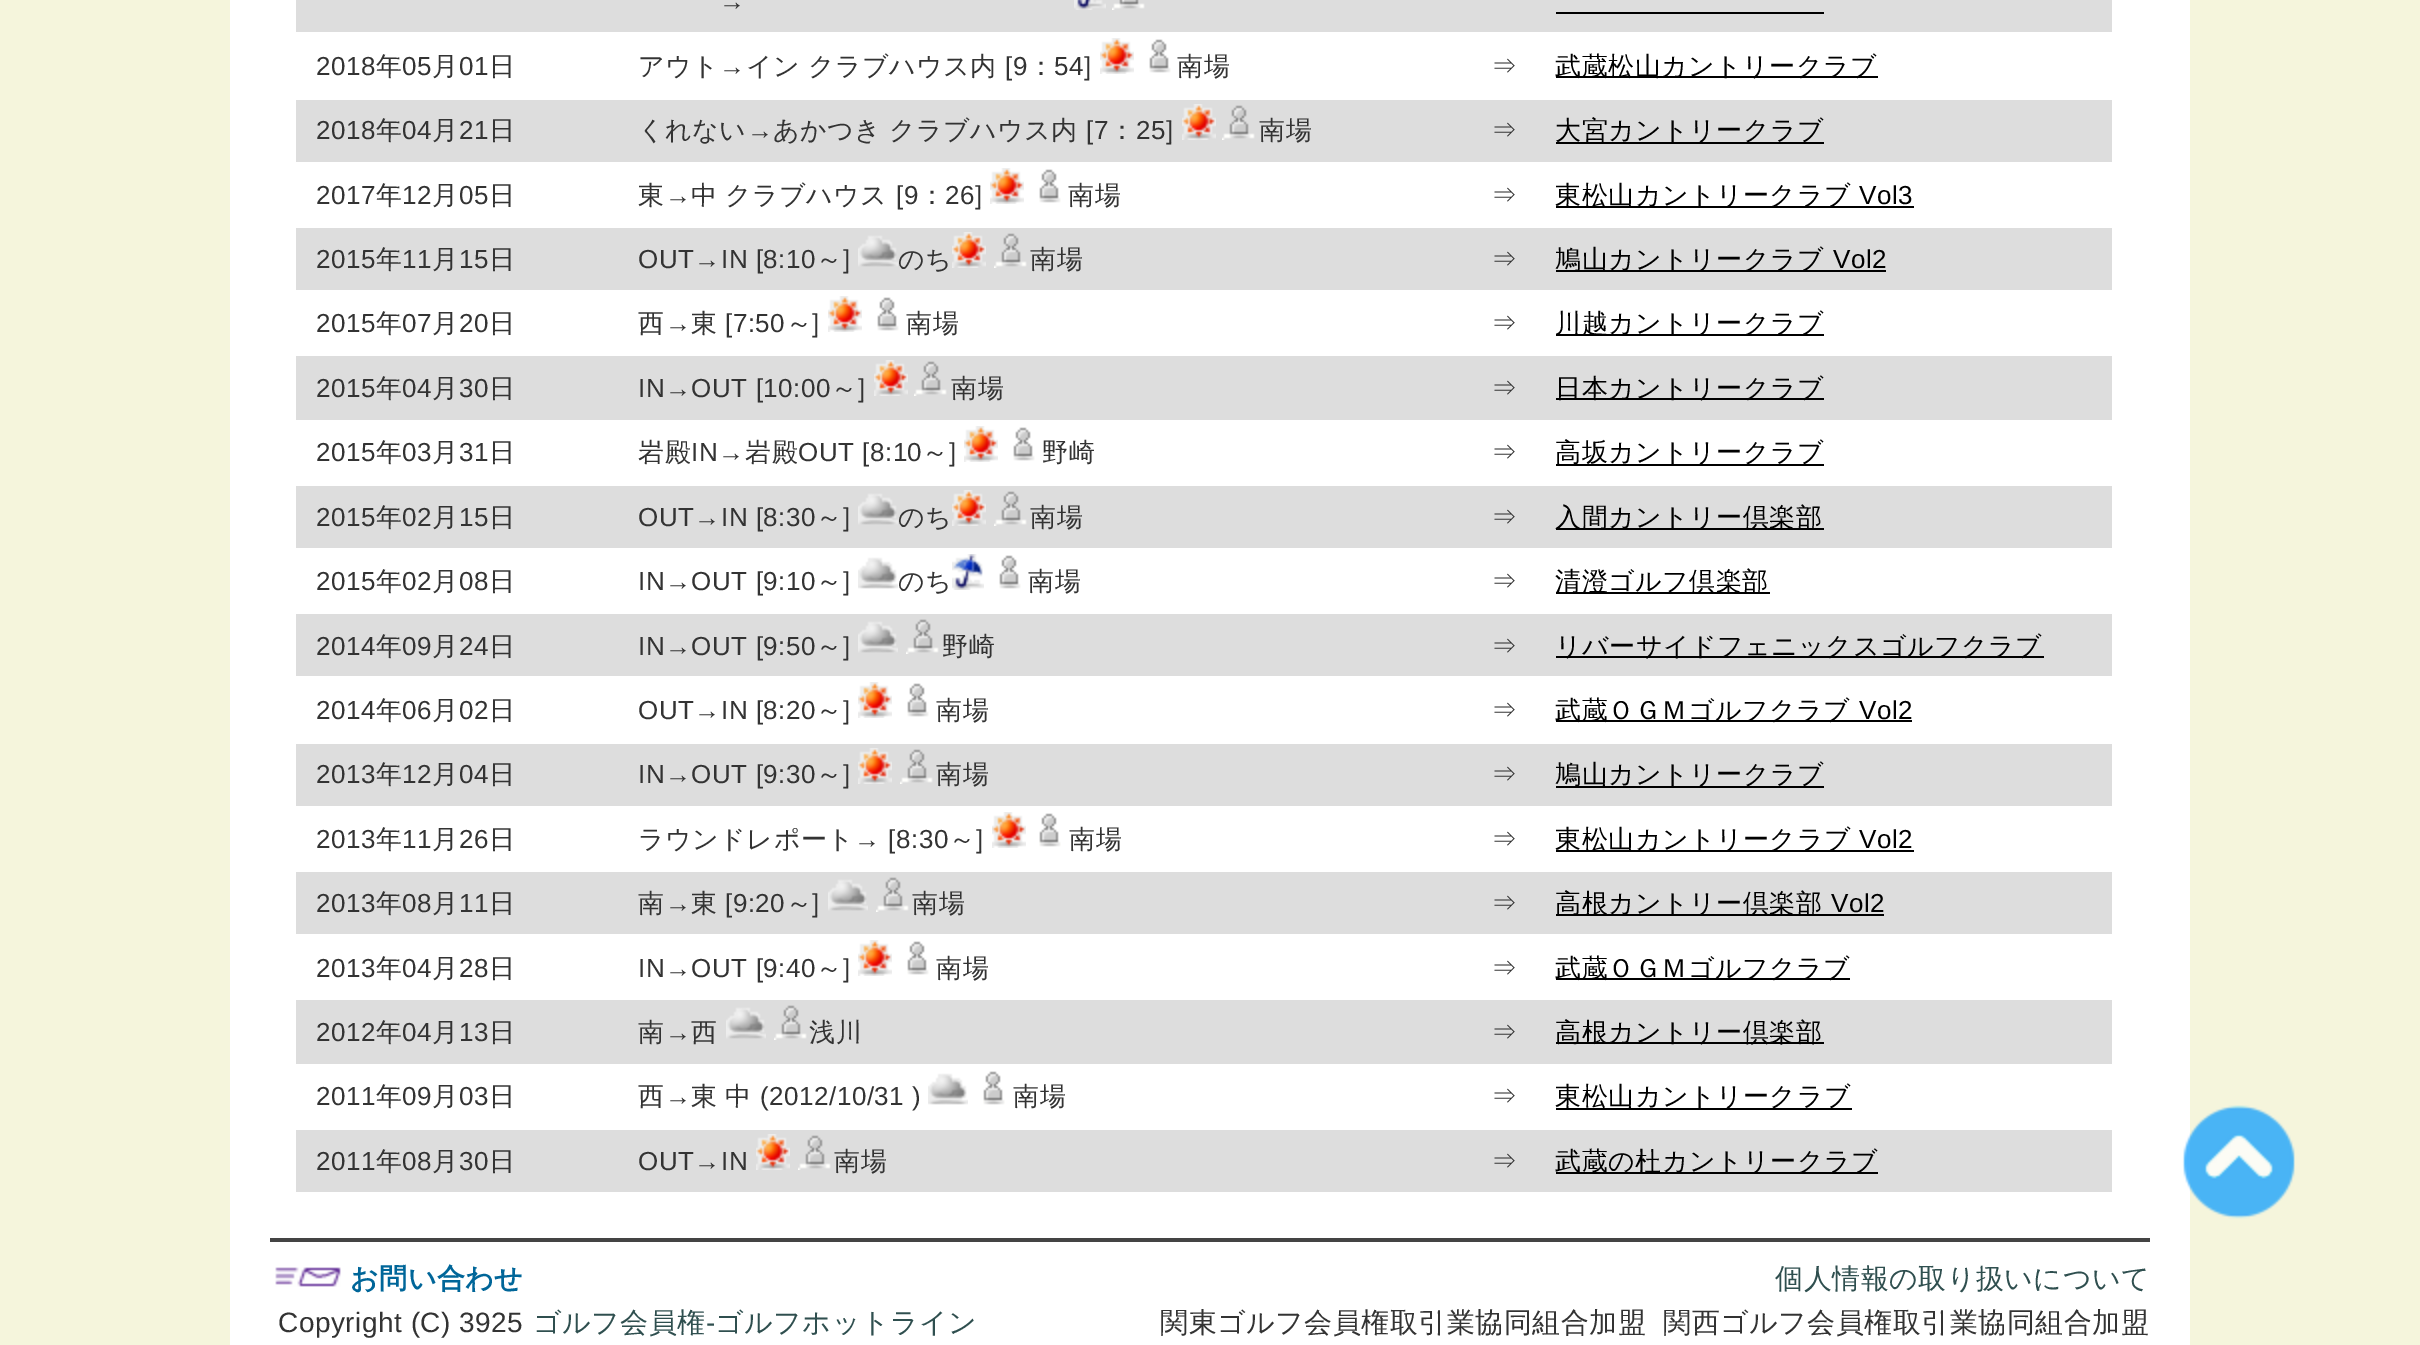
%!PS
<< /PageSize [2420 1345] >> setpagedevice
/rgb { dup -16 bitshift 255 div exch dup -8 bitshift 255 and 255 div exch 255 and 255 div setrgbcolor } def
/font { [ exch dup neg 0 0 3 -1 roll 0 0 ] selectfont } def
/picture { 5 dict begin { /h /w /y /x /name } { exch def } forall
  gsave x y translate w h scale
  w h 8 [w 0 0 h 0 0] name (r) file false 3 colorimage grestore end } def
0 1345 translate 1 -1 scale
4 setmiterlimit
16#F5F5DC rgb
0 0 2420 1345 rectfill
16#FFFFFF rgb
230 0 1960 1345 rectfill
16#DDDDDD rgb
296 0 1816 32 rectfill
/LiberationSans-Regular 26 font
16#333333 rgb
719 10 moveto 0.5 0 (→) ashow
(pic1.raw) 1074 0 32 10 picture
(pic2.raw) 1112 0 33 10 picture
16#000000 rgb
1556 12 268 2 rectfill
16#333333 rgb
316 75 moveto 0.5 0 (2018) ashow
/WenQuanYiZenHei-Medium 26 font
376 75 moveto 0.5 0 (年) ashow
/LiberationSans-Regular 26 font
402 75 moveto 0.5 0 (05) ashow
/WenQuanYiZenHei-Medium 26 font
432 75 moveto 0.5 0 (月) ashow
/LiberationSans-Regular 26 font
459 75 moveto 0.5 0 (01) ashow
/WenQuanYiZenHei-Medium 26 font
489 75 moveto 0.5 0 (日) ashow
638 75 moveto 0.5 0 (アウト) ashow
/LiberationSans-Regular 26 font
719 75 moveto 0.5 0 (→) ashow
/WenQuanYiZenHei-Medium 26 font
746 75 moveto -1 0 32 0.5 0 (イン クラブハウス内) awidthshow
/LiberationSans-Regular 26 font
1005 75 moveto 0.5 0 ([9) ashow
/WenQuanYiZenHei-Medium 26 font
1028 75 moveto 0.5 0 (：) ashow
/LiberationSans-Regular 26 font
1054 75 moveto 0.5 0 (54]) ashow
(pic3.raw) 1100 38 34 36 picture
(pic4.raw) 1149 39 22 34 picture
/WenQuanYiZenHei-Medium 26 font
1177 75 moveto 0.5 0 (南場) ashow
1491 75 moveto 0.5 0 (⇒) ashow
16#000000 rgb
1556 76 322 2 rectfill
1555 75 moveto 0.5 0 (武蔵松山カントリークラブ) ashow
16#DDDDDD rgb
296 100 1816 62 rectfill
/LiberationSans-Regular 26 font
16#333333 rgb
316 139 moveto 0.5 0 (2018) ashow
/WenQuanYiZenHei-Medium 26 font
376 139 moveto 0.5 0 (年) ashow
/LiberationSans-Regular 26 font
402 139 moveto 0.5 0 (04) ashow
/WenQuanYiZenHei-Medium 26 font
432 139 moveto 0.5 0 (月) ashow
/LiberationSans-Regular 26 font
459 139 moveto 0.5 0 (21) ashow
/WenQuanYiZenHei-Medium 26 font
489 139 moveto 0.5 0 (日) ashow
638 139 moveto 0.5 0 (くれない) ashow
/LiberationSans-Regular 26 font
747 139 moveto 0.5 0 (→) ashow
/WenQuanYiZenHei-Medium 26 font
773 139 moveto -1 0 32 0.5 0 (あかつき クラブハウス内) awidthshow
/LiberationSans-Regular 26 font
1086 139 moveto 0.5 0 ([7) ashow
/WenQuanYiZenHei-Medium 26 font
1109 139 moveto 0.5 0 (：) ashow
/LiberationSans-Regular 26 font
1136 139 moveto 0.5 0 (25]) ashow
(pic5.raw) 1182 104 34 36 picture
(pic6.raw) 1222 105 33 35 picture
/WenQuanYiZenHei-Medium 26 font
1259 139 moveto 0.5 0 (南場) ashow
1491 139 moveto 0.5 0 (⇒) ashow
16#000000 rgb
1556 142 268 2 rectfill
1555 139 moveto 0.5 0 (大宮カントリークラブ) ashow
/LiberationSans-Regular 26 font
16#333333 rgb
316 204 moveto 0.5 0 (2017) ashow
/WenQuanYiZenHei-Medium 26 font
376 204 moveto 0.5 0 (年) ashow
/LiberationSans-Regular 26 font
402 204 moveto 0.5 0 (12) ashow
/WenQuanYiZenHei-Medium 26 font
432 204 moveto 0.5 0 (月) ashow
/LiberationSans-Regular 26 font
459 204 moveto 0.5 0 (05) ashow
/WenQuanYiZenHei-Medium 26 font
489 204 moveto 0.5 0 (日) ashow
638 204 moveto 0.5 0 (東) ashow
/LiberationSans-Regular 26 font
665 204 moveto 0.5 0 (→) ashow
/WenQuanYiZenHei-Medium 26 font
691 204 moveto -1 0 32 0.5 0 (中 クラブハウス) awidthshow
/LiberationSans-Regular 26 font
896 204 moveto 0.5 0 ([9) ashow
/WenQuanYiZenHei-Medium 26 font
919 204 moveto 0.5 0 (：) ashow
/LiberationSans-Regular 26 font
945 204 moveto 0.5 0 (26]) ashow
(pic3.raw) 990 168 34 36 picture
(pic4.raw) 1039 169 22 34 picture
/WenQuanYiZenHei-Medium 26 font
1068 204 moveto 0.5 0 (南場) ashow
1491 204 moveto 0.5 0 (⇒) ashow
16#000000 rgb
1556 206 358 2 rectfill
1555 204 moveto 0.5 0 (東松山カントリークラブ) ashow
/LiberationSans-Regular 26 font
1859 204 moveto 0.5 0 (Vol3) ashow
16#DDDDDD rgb
296 228 1816 62 rectfill
16#333333 rgb
316 268 moveto 0.5 0 (2015) ashow
/WenQuanYiZenHei-Medium 26 font
376 268 moveto 0.5 0 (年) ashow
/LiberationSans-Regular 26 font
402 268 moveto 0.5 0 (11) ashow
/WenQuanYiZenHei-Medium 26 font
432 268 moveto 0.5 0 (月) ashow
/LiberationSans-Regular 26 font
459 268 moveto 0.5 0 (15) ashow
/WenQuanYiZenHei-Medium 26 font
489 268 moveto 0.5 0 (日) ashow
/LiberationSans-Regular 26 font
638 268 moveto 0.5 0 (OUT→IN [8:10) ashow
/WenQuanYiZenHei-Medium 26 font
816 268 moveto 0.5 0 (～) ashow
/LiberationSans-Regular 26 font
843 268 moveto 0.5 0 (]) ashow
(pic7.raw) 858 235 40 32 picture
/WenQuanYiZenHei-Medium 26 font
898 268 moveto 0.5 0 (のち) ashow
(pic5.raw) 952 232 34 36 picture
(pic6.raw) 994 233 33 35 picture
1030 268 moveto 0.5 0 (南場) ashow
1491 268 moveto 0.5 0 (⇒) ashow
16#000000 rgb
1556 270 330 2 rectfill
1555 268 moveto 0.5 0 (鳩山カントリークラブ) ashow
/LiberationSans-Regular 26 font
1833 268 moveto 0.5 0 (Vol2) ashow
16#333333 rgb
316 332 moveto 0.5 0 (2015) ashow
/WenQuanYiZenHei-Medium 26 font
376 332 moveto 0.5 0 (年) ashow
/LiberationSans-Regular 26 font
402 332 moveto 0.5 0 (07) ashow
/WenQuanYiZenHei-Medium 26 font
432 332 moveto 0.5 0 (月) ashow
/LiberationSans-Regular 26 font
459 332 moveto 0.5 0 (20) ashow
/WenQuanYiZenHei-Medium 26 font
489 332 moveto 0.5 0 (日) ashow
638 332 moveto 0.5 0 (西) ashow
/LiberationSans-Regular 26 font
665 332 moveto 0.5 0 (→) ashow
/WenQuanYiZenHei-Medium 26 font
691 332 moveto 0.5 0 (東) ashow
/LiberationSans-Regular 26 font
725 332 moveto 0.5 0 ([7:50) ashow
/WenQuanYiZenHei-Medium 26 font
786 332 moveto 0.5 0 (～) ashow
/LiberationSans-Regular 26 font
812 332 moveto 0.5 0 (]) ashow
(pic3.raw) 828 296 34 36 picture
(pic4.raw) 877 297 22 34 picture
/WenQuanYiZenHei-Medium 26 font
906 332 moveto 0.5 0 (南場) ashow
1491 332 moveto 0.5 0 (⇒) ashow
16#000000 rgb
1556 334 268 2 rectfill
1555 332 moveto 0.5 0 (川越カントリークラブ) ashow
16#DDDDDD rgb
296 356 1816 64 rectfill
/LiberationSans-Regular 26 font
16#333333 rgb
316 397 moveto 0.5 0 (2015) ashow
/WenQuanYiZenHei-Medium 26 font
376 397 moveto 0.5 0 (年) ashow
/LiberationSans-Regular 26 font
402 397 moveto 0.5 0 (04) ashow
/WenQuanYiZenHei-Medium 26 font
432 397 moveto 0.5 0 (月) ashow
/LiberationSans-Regular 26 font
459 397 moveto 0.5 0 (30) ashow
/WenQuanYiZenHei-Medium 26 font
489 397 moveto 0.5 0 (日) ashow
/LiberationSans-Regular 26 font
638 397 moveto 0.5 0 (IN→OUT [10:00) ashow
/WenQuanYiZenHei-Medium 26 font
831 397 moveto 0.5 0 (～) ashow
/LiberationSans-Regular 26 font
858 397 moveto 0.5 0 (]) ashow
(pic5.raw) 874 360 34 36 picture
(pic6.raw) 914 361 33 35 picture
/WenQuanYiZenHei-Medium 26 font
951 397 moveto 0.5 0 (南場) ashow
1491 397 moveto 0.5 0 (⇒) ashow
16#000000 rgb
1556 398 268 2 rectfill
1555 397 moveto 0.5 0 (日本カントリークラブ) ashow
/LiberationSans-Regular 26 font
16#333333 rgb
316 461 moveto 0.5 0 (2015) ashow
/WenQuanYiZenHei-Medium 26 font
376 461 moveto 0.5 0 (年) ashow
/LiberationSans-Regular 26 font
402 461 moveto 0.5 0 (03) ashow
/WenQuanYiZenHei-Medium 26 font
432 461 moveto 0.5 0 (月) ashow
/LiberationSans-Regular 26 font
459 461 moveto 0.5 0 (31) ashow
/WenQuanYiZenHei-Medium 26 font
489 461 moveto 0.5 0 (日) ashow
638 461 moveto 0.5 0 (岩殿) ashow
/LiberationSans-Regular 26 font
691 461 moveto 0.5 0 (IN→) ashow
/WenQuanYiZenHei-Medium 26 font
745 461 moveto 0.5 0 (岩殿) ashow
/LiberationSans-Regular 26 font
798 461 moveto 0.5 0 (OUT [8:10) ashow
/WenQuanYiZenHei-Medium 26 font
922 461 moveto 0.5 0 (～) ashow
/LiberationSans-Regular 26 font
949 461 moveto 0.5 0 (]) ashow
(pic3.raw) 964 426 34 36 picture
(pic4.raw) 1013 427 22 34 picture
/WenQuanYiZenHei-Medium 26 font
1042 461 moveto 0.5 0 (野崎) ashow
1491 461 moveto 0.5 0 (⇒) ashow
16#000000 rgb
1556 464 268 2 rectfill
1555 461 moveto 0.5 0 (高坂カントリークラブ) ashow
16#DDDDDD rgb
296 486 1816 62 rectfill
/LiberationSans-Regular 26 font
16#333333 rgb
316 526 moveto 0.5 0 (2015) ashow
/WenQuanYiZenHei-Medium 26 font
376 526 moveto 0.5 0 (年) ashow
/LiberationSans-Regular 26 font
402 526 moveto 0.5 0 (02) ashow
/WenQuanYiZenHei-Medium 26 font
432 526 moveto 0.5 0 (月) ashow
/LiberationSans-Regular 26 font
459 526 moveto 0.5 0 (15) ashow
/WenQuanYiZenHei-Medium 26 font
489 526 moveto 0.5 0 (日) ashow
/LiberationSans-Regular 26 font
638 526 moveto 0.5 0 (OUT→IN [8:30) ashow
/WenQuanYiZenHei-Medium 26 font
816 526 moveto 0.5 0 (～) ashow
/LiberationSans-Regular 26 font
843 526 moveto 0.5 0 (]) ashow
(pic7.raw) 858 493 40 32 picture
/WenQuanYiZenHei-Medium 26 font
898 526 moveto 0.5 0 (のち) ashow
(pic5.raw) 952 490 34 36 picture
(pic6.raw) 994 491 33 35 picture
1030 526 moveto 0.5 0 (南場) ashow
1491 526 moveto 0.5 0 (⇒) ashow
16#000000 rgb
1556 528 268 2 rectfill
1555 526 moveto 0.5 0 (入間カントリー倶楽部) ashow
/LiberationSans-Regular 26 font
16#333333 rgb
316 590 moveto 0.5 0 (2015) ashow
/WenQuanYiZenHei-Medium 26 font
376 590 moveto 0.5 0 (年) ashow
/LiberationSans-Regular 26 font
402 590 moveto 0.5 0 (02) ashow
/WenQuanYiZenHei-Medium 26 font
432 590 moveto 0.5 0 (月) ashow
/LiberationSans-Regular 26 font
459 590 moveto 0.5 0 (08) ashow
/WenQuanYiZenHei-Medium 26 font
489 590 moveto 0.5 0 (日) ashow
/LiberationSans-Regular 26 font
638 590 moveto 0.5 0 (IN→OUT [9:10) ashow
/WenQuanYiZenHei-Medium 26 font
816 590 moveto 0.5 0 (～) ashow
/LiberationSans-Regular 26 font
843 590 moveto 0.5 0 (]) ashow
(pic8.raw) 858 557 40 32 picture
/WenQuanYiZenHei-Medium 26 font
898 590 moveto 0.5 0 (のち) ashow
(pic9.raw) 952 554 32 36 picture
(pic4.raw) 999 555 22 34 picture
1028 590 moveto 0.5 0 (南場) ashow
1491 590 moveto 0.5 0 (⇒) ashow
16#000000 rgb
1556 592 214 2 rectfill
1555 590 moveto 0.5 0 (清澄ゴルフ倶楽部) ashow
16#DDDDDD rgb
296 614 1816 62 rectfill
/LiberationSans-Regular 26 font
16#333333 rgb
316 655 moveto 0.5 0 (2014) ashow
/WenQuanYiZenHei-Medium 26 font
376 655 moveto 0.5 0 (年) ashow
/LiberationSans-Regular 26 font
402 655 moveto 0.5 0 (09) ashow
/WenQuanYiZenHei-Medium 26 font
432 655 moveto 0.5 0 (月) ashow
/LiberationSans-Regular 26 font
459 655 moveto 0.5 0 (24) ashow
/WenQuanYiZenHei-Medium 26 font
489 655 moveto 0.5 0 (日) ashow
/LiberationSans-Regular 26 font
638 655 moveto 0.5 0 (IN→OUT [9:50) ashow
/WenQuanYiZenHei-Medium 26 font
816 655 moveto 0.5 0 (～) ashow
/LiberationSans-Regular 26 font
843 655 moveto 0.5 0 (]) ashow
(pic7.raw) 858 621 40 32 picture
(pic6.raw) 906 619 33 35 picture
/WenQuanYiZenHei-Medium 26 font
942 655 moveto 0.5 0 (野崎) ashow
1491 655 moveto 0.5 0 (⇒) ashow
16#000000 rgb
1556 656 488 2 rectfill
1555 655 moveto 0.5 0 (リバーサイドフェニックスゴルフクラブ) ashow
/LiberationSans-Regular 26 font
16#333333 rgb
316 719 moveto 0.5 0 (2014) ashow
/WenQuanYiZenHei-Medium 26 font
376 719 moveto 0.5 0 (年) ashow
/LiberationSans-Regular 26 font
402 719 moveto 0.5 0 (06) ashow
/WenQuanYiZenHei-Medium 26 font
432 719 moveto 0.5 0 (月) ashow
/LiberationSans-Regular 26 font
459 719 moveto 0.5 0 (02) ashow
/WenQuanYiZenHei-Medium 26 font
489 719 moveto 0.5 0 (日) ashow
/LiberationSans-Regular 26 font
638 719 moveto 0.5 0 (OUT→IN [8:20) ashow
/WenQuanYiZenHei-Medium 26 font
816 719 moveto 0.5 0 (～) ashow
/LiberationSans-Regular 26 font
843 719 moveto 0.5 0 (]) ashow
(pic3.raw) 858 682 34 36 picture
(pic4.raw) 907 683 22 34 picture
/WenQuanYiZenHei-Medium 26 font
936 719 moveto 0.5 0 (南場) ashow
1491 719 moveto 0.5 0 (⇒) ashow
16#000000 rgb
1556 720 356 2 rectfill
1555 719 moveto 0.5 0 (武蔵ＯＧＭゴルフクラブ) ashow
/LiberationSans-Regular 26 font
1859 719 moveto 0.5 0 (Vol2) ashow
16#DDDDDD rgb
296 744 1816 62 rectfill
16#333333 rgb
316 783 moveto 0.5 0 (2013) ashow
/WenQuanYiZenHei-Medium 26 font
376 783 moveto 0.5 0 (年) ashow
/LiberationSans-Regular 26 font
402 783 moveto 0.5 0 (12) ashow
/WenQuanYiZenHei-Medium 26 font
432 783 moveto 0.5 0 (月) ashow
/LiberationSans-Regular 26 font
459 783 moveto 0.5 0 (04) ashow
/WenQuanYiZenHei-Medium 26 font
489 783 moveto 0.5 0 (日) ashow
/LiberationSans-Regular 26 font
638 783 moveto 0.5 0 (IN→OUT [9:30) ashow
/WenQuanYiZenHei-Medium 26 font
816 783 moveto 0.5 0 (～) ashow
/LiberationSans-Regular 26 font
843 783 moveto 0.5 0 (]) ashow
(pic5.raw) 858 748 34 36 picture
(pic6.raw) 900 749 33 35 picture
/WenQuanYiZenHei-Medium 26 font
936 783 moveto 0.5 0 (南場) ashow
1491 783 moveto 0.5 0 (⇒) ashow
16#000000 rgb
1556 786 268 2 rectfill
1555 783 moveto 0.5 0 (鳩山カントリークラブ) ashow
/LiberationSans-Regular 26 font
16#333333 rgb
316 848 moveto 0.5 0 (2013) ashow
/WenQuanYiZenHei-Medium 26 font
376 848 moveto 0.5 0 (年) ashow
/LiberationSans-Regular 26 font
402 848 moveto 0.5 0 (11) ashow
/WenQuanYiZenHei-Medium 26 font
432 848 moveto 0.5 0 (月) ashow
/LiberationSans-Regular 26 font
459 848 moveto 0.5 0 (26) ashow
/WenQuanYiZenHei-Medium 26 font
489 848 moveto 0.5 0 (日) ashow
638 848 moveto 0.5 0 (ラウンドレポート) ashow
/LiberationSans-Regular 26 font
854 848 moveto 0.5 0 (→ [8:30) ashow
/WenQuanYiZenHei-Medium 26 font
949 848 moveto 0.5 0 (～) ashow
/LiberationSans-Regular 26 font
976 848 moveto 0.5 0 (]) ashow
(pic3.raw) 992 812 34 36 picture
(pic4.raw) 1039 813 22 34 picture
/WenQuanYiZenHei-Medium 26 font
1069 848 moveto 0.5 0 (南場) ashow
1491 848 moveto 0.5 0 (⇒) ashow
16#000000 rgb
1556 850 358 2 rectfill
1555 848 moveto 0.5 0 (東松山カントリークラブ) ashow
/LiberationSans-Regular 26 font
1859 848 moveto 0.5 0 (Vol2) ashow
16#DDDDDD rgb
296 872 1816 62 rectfill
16#333333 rgb
316 912 moveto 0.5 0 (2013) ashow
/WenQuanYiZenHei-Medium 26 font
376 912 moveto 0.5 0 (年) ashow
/LiberationSans-Regular 26 font
402 912 moveto 0.5 0 (08) ashow
/WenQuanYiZenHei-Medium 26 font
432 912 moveto 0.5 0 (月) ashow
/LiberationSans-Regular 26 font
459 912 moveto 0.5 0 (11) ashow
/WenQuanYiZenHei-Medium 26 font
489 912 moveto 0.5 0 (日) ashow
638 912 moveto 0.5 0 (南) ashow
/LiberationSans-Regular 26 font
665 912 moveto 0.5 0 (→) ashow
/WenQuanYiZenHei-Medium 26 font
691 912 moveto 0.5 0 (東) ashow
/LiberationSans-Regular 26 font
725 912 moveto 0.5 0 ([9:20) ashow
/WenQuanYiZenHei-Medium 26 font
786 912 moveto 0.5 0 (～) ashow
/LiberationSans-Regular 26 font
812 912 moveto 0.5 0 (]) ashow
(pic7.raw) 828 879 40 32 picture
(pic6.raw) 876 877 33 35 picture
/WenQuanYiZenHei-Medium 26 font
912 912 moveto 0.5 0 (南場) ashow
1491 912 moveto 0.5 0 (⇒) ashow
16#000000 rgb
1556 914 328 2 rectfill
1555 912 moveto 0.5 0 (高根カントリー倶楽部) ashow
/LiberationSans-Regular 26 font
1831 912 moveto 0.5 0 (Vol2) ashow
16#333333 rgb
316 977 moveto 0.5 0 (2013) ashow
/WenQuanYiZenHei-Medium 26 font
376 977 moveto 0.5 0 (年) ashow
/LiberationSans-Regular 26 font
402 977 moveto 0.5 0 (04) ashow
/WenQuanYiZenHei-Medium 26 font
432 977 moveto 0.5 0 (月) ashow
/LiberationSans-Regular 26 font
459 977 moveto 0.5 0 (28) ashow
/WenQuanYiZenHei-Medium 26 font
489 977 moveto 0.5 0 (日) ashow
/LiberationSans-Regular 26 font
638 977 moveto 0.5 0 (IN→OUT [9:40) ashow
/WenQuanYiZenHei-Medium 26 font
816 977 moveto 0.5 0 (～) ashow
/LiberationSans-Regular 26 font
843 977 moveto 0.5 0 (]) ashow
(pic3.raw) 858 940 34 36 picture
(pic4.raw) 907 941 22 34 picture
/WenQuanYiZenHei-Medium 26 font
936 977 moveto 0.5 0 (南場) ashow
1491 977 moveto 0.5 0 (⇒) ashow
16#000000 rgb
1556 978 294 2 rectfill
1555 977 moveto 0.5 0 (武蔵ＯＧＭゴルフクラブ) ashow
16#DDDDDD rgb
296 1000 1816 64 rectfill
/LiberationSans-Regular 26 font
16#333333 rgb
316 1041 moveto 0.5 0 (2012) ashow
/WenQuanYiZenHei-Medium 26 font
376 1041 moveto 0.5 0 (年) ashow
/LiberationSans-Regular 26 font
402 1041 moveto 0.5 0 (04) ashow
/WenQuanYiZenHei-Medium 26 font
432 1041 moveto 0.5 0 (月) ashow
/LiberationSans-Regular 26 font
459 1041 moveto 0.5 0 (13) ashow
/WenQuanYiZenHei-Medium 26 font
489 1041 moveto 0.5 0 (日) ashow
638 1041 moveto 0.5 0 (南) ashow
/LiberationSans-Regular 26 font
665 1041 moveto 0.5 0 (→) ashow
/WenQuanYiZenHei-Medium 26 font
691 1041 moveto 0.5 0 (西) ashow
(pic7.raw) 726 1007 40 32 picture
(pic6.raw) 774 1005 33 35 picture
809 1041 moveto 0.5 0 (浅川) ashow
1491 1041 moveto 0.5 0 (⇒) ashow
16#000000 rgb
1556 1042 268 2 rectfill
1555 1041 moveto 0.5 0 (高根カントリー倶楽部) ashow
/LiberationSans-Regular 26 font
16#333333 rgb
316 1105 moveto 0.5 0 (2011) ashow
/WenQuanYiZenHei-Medium 26 font
376 1105 moveto 0.5 0 (年) ashow
/LiberationSans-Regular 26 font
402 1105 moveto 0.5 0 (09) ashow
/WenQuanYiZenHei-Medium 26 font
432 1105 moveto 0.5 0 (月) ashow
/LiberationSans-Regular 26 font
459 1105 moveto 0.5 0 (03) ashow
/WenQuanYiZenHei-Medium 26 font
489 1105 moveto 0.5 0 (日) ashow
638 1105 moveto 0.5 0 (西) ashow
/LiberationSans-Regular 26 font
665 1105 moveto 0.5 0 (→) ashow
/WenQuanYiZenHei-Medium 26 font
691 1105 moveto 0.5 0 (東) ashow
725 1105 moveto 0.5 0 (中) ashow
/LiberationSans-Regular 26 font
760 1105 moveto 0.5 0 (\(2012/10/31 \)) ashow
(pic8.raw) 928 1073 40 32 picture
(pic4.raw) 983 1071 22 34 picture
/WenQuanYiZenHei-Medium 26 font
1013 1105 moveto 0.5 0 (南場) ashow
1491 1105 moveto 0.5 0 (⇒) ashow
16#000000 rgb
1556 1108 296 2 rectfill
1555 1105 moveto 0.5 0 (東松山カントリークラブ) ashow
16#DDDDDD rgb
296 1130 1816 62 rectfill
/LiberationSans-Regular 26 font
16#333333 rgb
316 1170 moveto 0.5 0 (2011) ashow
/WenQuanYiZenHei-Medium 26 font
376 1170 moveto 0.5 0 (年) ashow
/LiberationSans-Regular 26 font
402 1170 moveto 0.5 0 (08) ashow
/WenQuanYiZenHei-Medium 26 font
432 1170 moveto 0.5 0 (月) ashow
/LiberationSans-Regular 26 font
459 1170 moveto 0.5 0 (30) ashow
/WenQuanYiZenHei-Medium 26 font
489 1170 moveto 0.5 0 (日) ashow
/LiberationSans-Regular 26 font
638 1170 moveto 0.5 0 (OUT→IN) ashow
(pic5.raw) 756 1134 34 36 picture
(pic6.raw) 798 1135 33 35 picture
/WenQuanYiZenHei-Medium 26 font
834 1170 moveto 0.5 0 (南場) ashow
1491 1170 moveto 0.5 0 (⇒) ashow
16#000000 rgb
1556 1172 322 2 rectfill
1555 1170 moveto 0.5 0 (武蔵の杜カントリークラブ) ashow
16#444444 rgb
270 1238 1880 4 rectfill
(pic10.raw) 275 1267 66 20 picture
/WenQuanYiZenHei-Bold 28 font
16#006699 rgb
350 1288 moveto 0.5 0 (お問い合わせ) ashow
/WenQuanYiZenHei-Medium 28 font
16#2F4F4F rgb
1775 1288 moveto 0.5 0 (個人情報の取り扱いについて) ashow
/LiberationSans-Regular 28 font
16#333333 rgb
278 1332 moveto 0.5 0 (Copyright \(C\) 3925) ashow
/WenQuanYiZenHei-Medium 28 font
16#2F4F4F rgb
533 1332 moveto 0.5 0 (ゴルフ会員権) ashow
/LiberationSans-Regular 28 font
706 1332 moveto 0.5 0 (-) ashow
/WenQuanYiZenHei-Medium 28 font
715 1332 moveto 0.5 0 (ゴルフホットライン) ashow
16#333333 rgb
1160 1332 moveto 0.5 0 (関東ゴルフ会員権取引業協同組合加盟) ashow
1663 1332 moveto 0.5 0 (関西ゴルフ会員権取引業協同組合加盟) ashow
(pic11.raw) 2182 1105 113 114 picture
showpage
